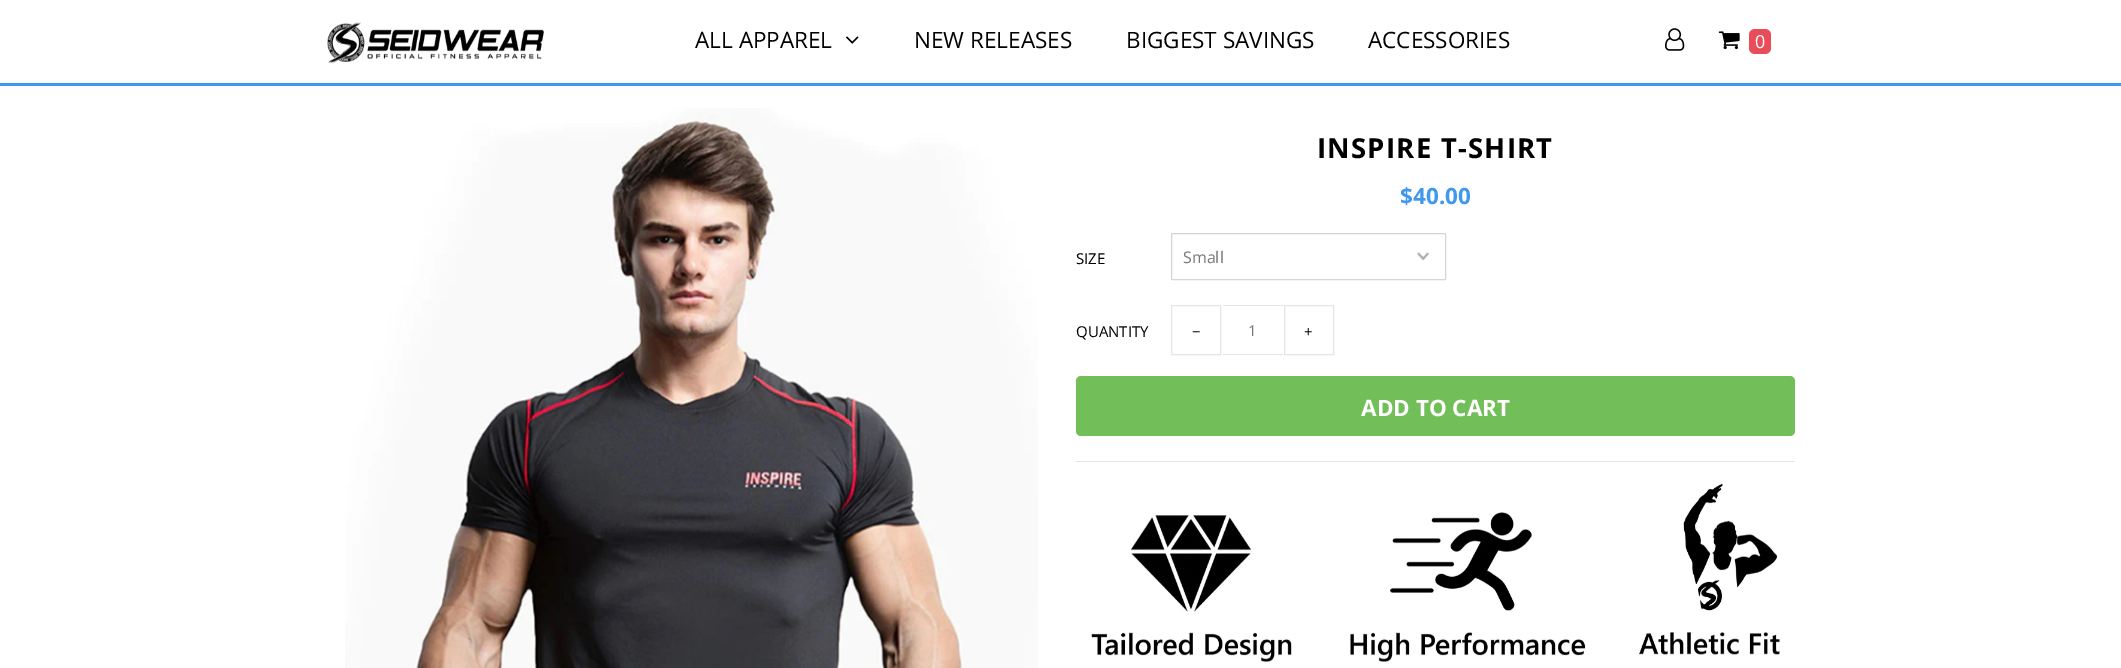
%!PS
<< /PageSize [2121 668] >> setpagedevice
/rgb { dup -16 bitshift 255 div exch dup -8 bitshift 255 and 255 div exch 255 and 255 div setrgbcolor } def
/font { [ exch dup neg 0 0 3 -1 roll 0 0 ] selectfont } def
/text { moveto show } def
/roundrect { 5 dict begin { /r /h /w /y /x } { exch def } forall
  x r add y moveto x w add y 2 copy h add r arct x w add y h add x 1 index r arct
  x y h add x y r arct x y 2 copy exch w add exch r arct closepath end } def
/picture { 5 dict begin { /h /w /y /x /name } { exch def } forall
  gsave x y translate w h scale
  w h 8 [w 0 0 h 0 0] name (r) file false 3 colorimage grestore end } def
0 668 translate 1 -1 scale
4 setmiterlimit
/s1 { /OpenSans-Regular 22.5 font 16#000000 rgb } def
/s2 { /OpenSans-Regular 18 font 16#FFFFFF rgb } def
/s3 { /OpenSans-Bold 22.5 font 16#4199ED rgb } def
/s4 { /OpenSans-Regular 15 font 16#000000 rgb } def
/s5 { /OpenSans-Regular 16 font 16#777777 rgb } def
/s6 { /OpenSans-Regular 15 font 16#777777 rgb } def
/s7 { /OpenSans-Bold 22.5 font 16#FFFFFF rgb } def
16#FFFFFF rgb
0 0 2121 668 rectfill
16#4199ED rgb
0 83 2121 3 rectfill
(pic1.raw) 327 22 217 42 picture
s1
(ALL APPAREL) 695 48 text
(pic2.raw) 846 36 13 8 picture
(NEW RELEASES) 914 48 text
(BIGGEST SAVINGS) 1126 48 text
(ACCESSORIES) 1368 48 text
(pic3.raw) 1665 28 20 23 picture
(pic4.raw) 1718 31 22 19 picture
16#EA4D5A rgb
1749 29 22 25 6 roundrect fill
s2
(0) 1755 48 text
(pic5.raw) 345 108 693 560 picture
/OpenSans-Bold 27.5 font
16#000000 rgb
1317 158 moveto 1.25 0 (INSPIRE T-SHIRT) ashow
s3
($40.00) 1400 204 text
16#E5E5E5 rgb
1076 461 719 1 rectfill
s4
(SIZE) 1076 264 text
(pic6.raw) 1417 252 12 9 picture
16#D5D5D5 rgb
1171.5 233.5 274 46 0.5 roundrect stroke
s5
(Small) 1183 263 text
s4
(QUANTITY) 1076 337 text
16#E5E5E5 rgb
1171.5 305.5 49 49 rectstroke
s4
(−) 1192 337 text
16#E5E5E5 rgb
1223 305 60 1 rectfill
1223 354 60 1 rectfill
s6
(1) 1248 336 text
16#E5E5E5 rgb
1284.5 305.5 49 49 rectstroke
s4
(+) 1304 337 text
16#72BE58 rgb
1076 376 719 60 5 roundrect fill
s7
(ADD TO CART) 1361 416 text
(pic7.raw) 1091 482 689 180 picture
showpage
